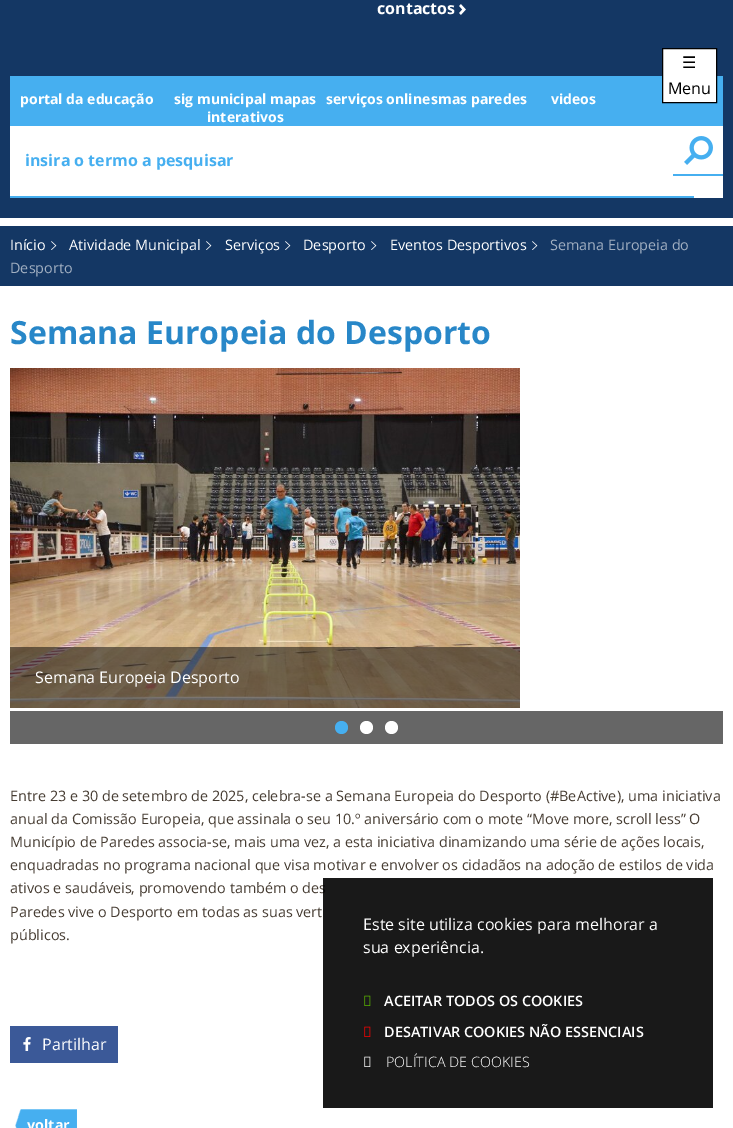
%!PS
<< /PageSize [733 1128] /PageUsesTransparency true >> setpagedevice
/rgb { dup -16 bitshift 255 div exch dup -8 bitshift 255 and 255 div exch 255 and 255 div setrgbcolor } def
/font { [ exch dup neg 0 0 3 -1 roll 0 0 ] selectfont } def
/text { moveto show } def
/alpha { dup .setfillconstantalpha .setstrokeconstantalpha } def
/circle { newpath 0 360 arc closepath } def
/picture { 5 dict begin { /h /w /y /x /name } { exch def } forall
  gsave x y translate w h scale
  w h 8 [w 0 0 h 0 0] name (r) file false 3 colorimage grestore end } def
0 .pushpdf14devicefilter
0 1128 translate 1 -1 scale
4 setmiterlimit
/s1 { /OpenSans-Bold 16 font 16#FFFFFF rgb } def
/s2 { /OpenSans-Bold 14 font 16#FFFFFF rgb } def
/s3 { /OpenSans-Bold 16 font 16#46AFF0 rgb } def
/s4 { /DejaVuSans-Regular 16 font 16#000000 rgb } def
/s5 { /OpenSans-Regular 16 font 16#000000 rgb } def
/s6 { /OpenSans-Regular 14.4 font 16#FFFFFF rgb } def
/s7 { /OpenSans-Regular 14.4 font 16#A1AFC1 rgb } def
/s8 { /OpenSans-Bold 32 font 16#2887C8 rgb } def
/s9 { /OpenSans-Regular 16 font 16#FFFFFF rgb } def
/s10 { /OpenSans-Regular 14.4 font 16#463C32 rgb } def
/s11 { /OpenSans-SemiBold 14.4 font 16#FFFFFF rgb } def
/s12 { /OpenSans-Light 14.4 font 16#FFFFFF rgb } def
/s13 { /OpenSans-Bold 14.4 font 16#FFFFFF rgb } def
16#FFFFFF rgb
0 0 733 1128 rectfill
16#143764 rgb
0 0 733 218 rectfill
s1
(contactos) 377 14 text
(pic1.raw) 459 4 7 11 picture
16#46AFF0 rgb
10 76 713 50 rectfill
s2
(portal da educação) 20 104 text
(sig municipal mapas) 174 104 text
(interativos) 207 122 text
(serviços online) 326 104 text
(smas paredes) 431 104 text
(videos) 551 104 text
10 126 713 72 rectfill
16#46AFF0 rgb
10 196 684 2 rectfill
s3
(insira o termo a pesquisar) 25 166 text
(pic2.raw) 684 136 29 29 picture
673 174 50 2 rectfill
16#FFFFFF rgb
662.5 48.5 moveto 716.5 48.5 lineto 716.5 102.5 lineto 662.5 102.5 lineto closepath gsave fill grestore
16#000000 rgb
stroke
s4
(☰) 682 68 text
s5
(Menu) 668 94 text
16#143764 rgb
0 226 733 60 rectfill
s6
(Início) 10 250 text
(pic3.raw) 51 241 6 9 picture
(Atividade Municipal) 69 250 text
(pic3.raw) 206 241 6 9 picture
(Serviços) 225 250 text
(pic3.raw) 285 241 6 9 picture
(Desporto) 303 250 text
(pic3.raw) 371 241 6 9 picture
(Eventos Desportivos) 390 250 text
(pic3.raw) 532 241 6 9 picture
s7
(Semana Europeia do) 550 250 text
(Desporto) 10 273 text
s8
(Semana Europeia do Desporto) 10 344 text
(pic4.raw) 10 368 510 340 picture
0.5 alpha
16#000000 rgb
10 647 510 61 rectfill
1 alpha
s9
(Semana Europeia Desporto) 35 683 text
16#666666 rgb
10 711 713 33 rectfill
16#46AFF0 rgb
341.5 727.5 6.5 circle fill
16#FFFFFF rgb
366.5 727.5 6.5 circle fill
391.5 727.5 6.5 circle fill
s10
(Entre 23 e 30 de setembro de 2025, celebra-se a Semana Europeia do Desporto \(#BeActive\), uma iniciativa) 10 801 text
(anual da Comissão Europeia, que assinala o seu 10.º aniversário com o mote “Move more, scroll less” O) 10 824 text
(Município de Paredes associa-se, mais uma vez, a esta iniciativa dinamizando uma série de ações locais,) 10 847 text
(enquadradas no programa nacional que visa motivar e envolver os cidadãos na adoção de estilos de vida) 10 870 text
(ativos e saudáveis, promovendo também o des) 10 893 text
(Paredes vive o Desporto em todas as suas vert) 10 917 text
(públicos.) 10 940 text
16#3B5998 rgb
10 1026 108 37 rectfill
(pic5.raw) 23 1037 8 14 picture
s9
(Partilhar) 42 1050 text
0.9 alpha
16#000000 rgb
323 878 390 230 rectfill
1 alpha
s9
(Este site utiliza cookies para melhorar a) 363 930 text
(sua experiência.) 363 953 text
(pic6.raw) 364 995 7 11 picture
s11
(ACEITAR TODOS OS COOKIES) 384 1006 text
(pic7.raw) 364 1026 7 11 picture
(DESATIVAR COOKIES NÃO ESSENCIAIS) 384 1037 text
(pic8.raw) 364 1056 7 11 picture
s12
(POLÍTICA DE COOKIES) 386 1067 text
(pic9.raw) 15 1109 62 19 picture
s13
(voltar) 27 1130 text
.poppdf14devicefilter showpage
